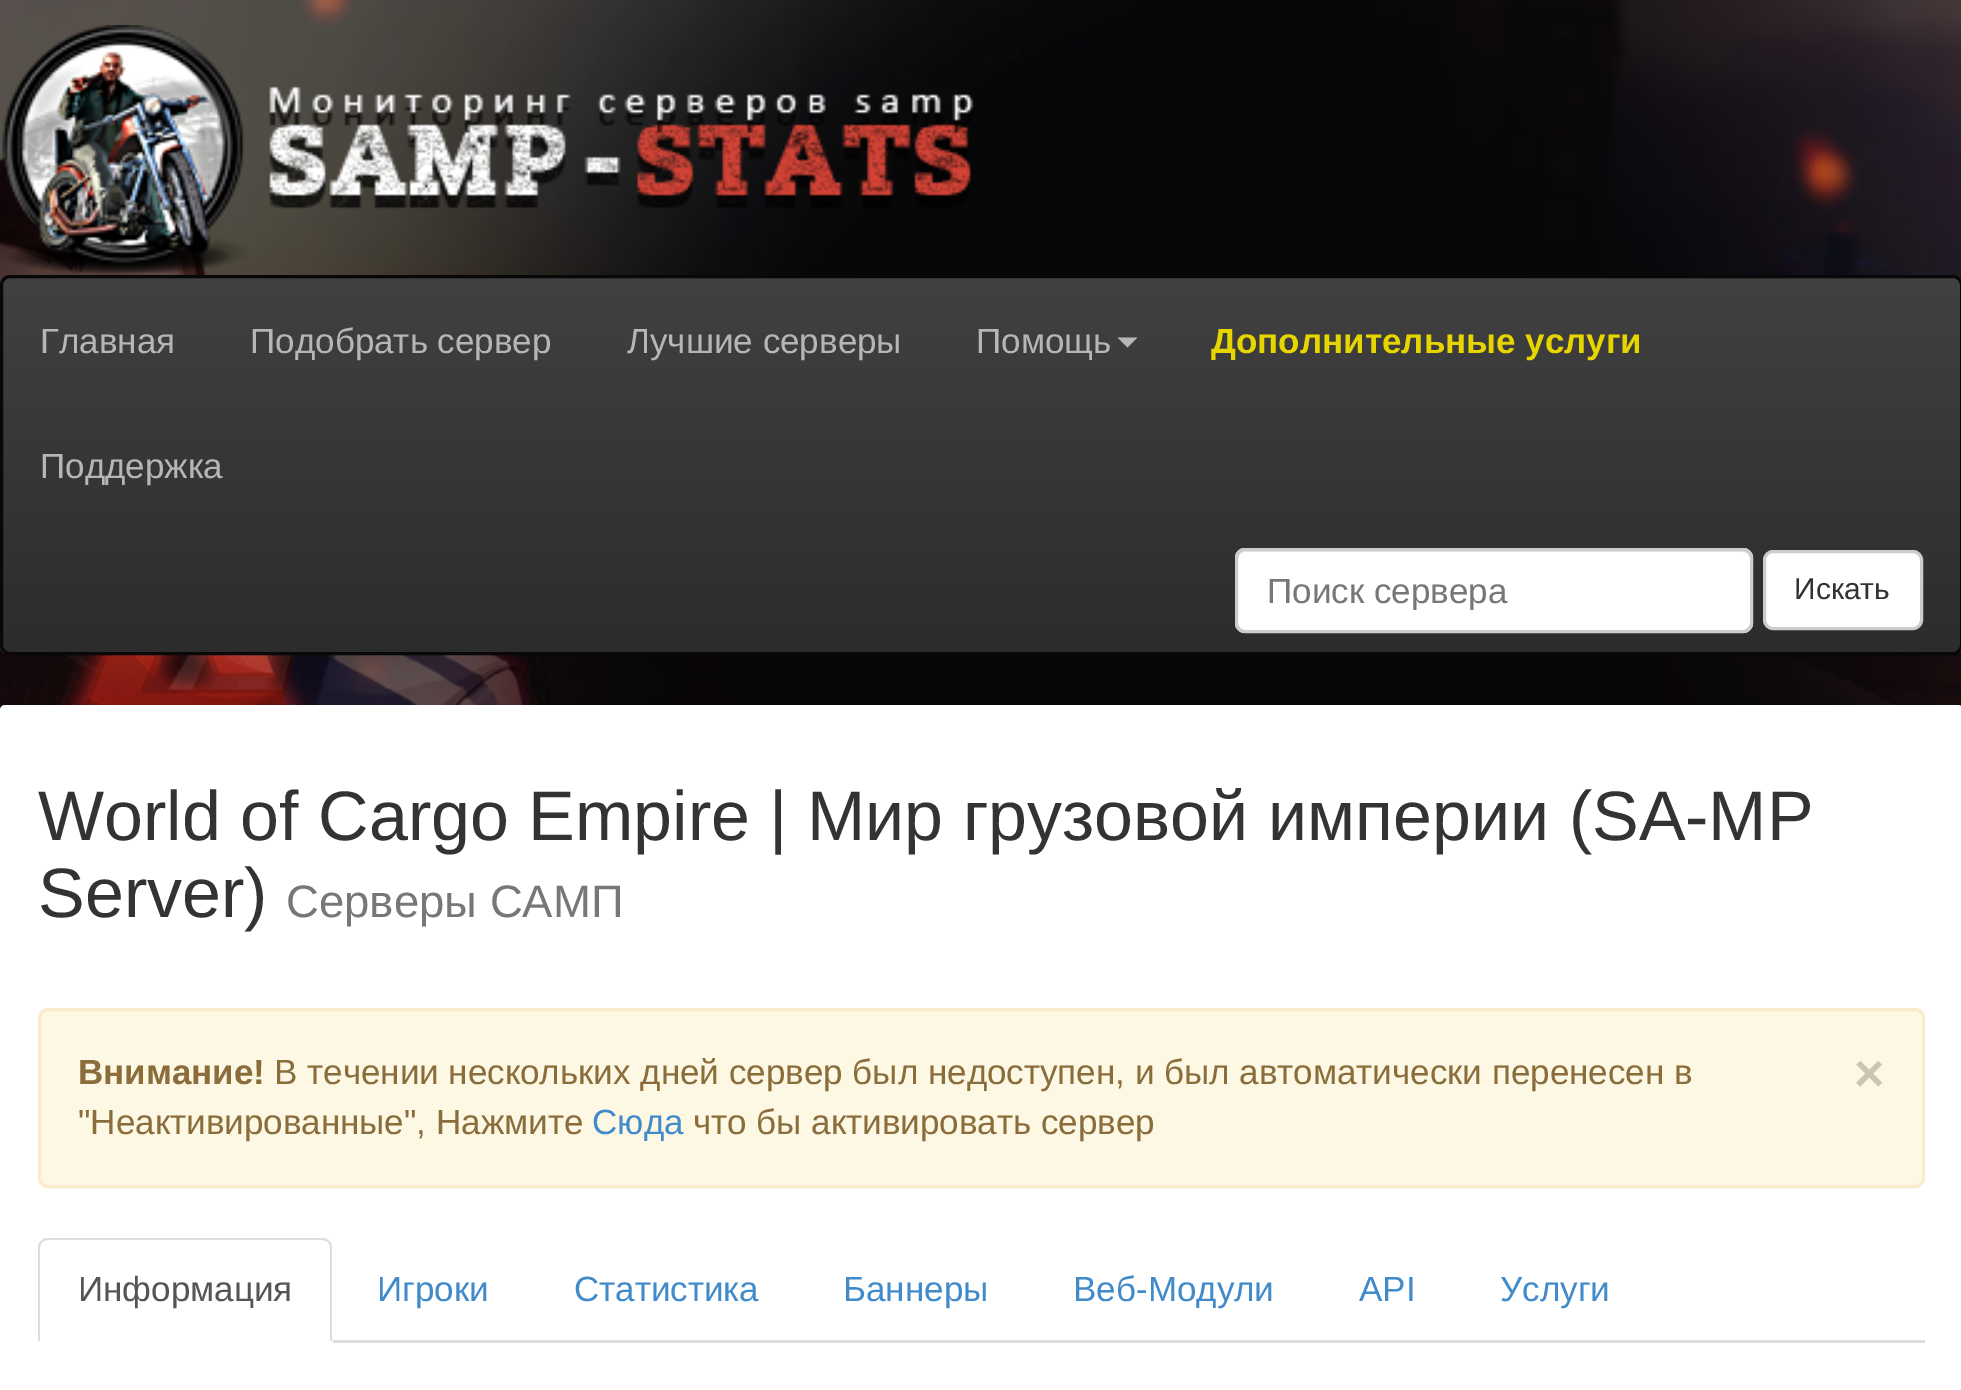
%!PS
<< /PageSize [1961 1390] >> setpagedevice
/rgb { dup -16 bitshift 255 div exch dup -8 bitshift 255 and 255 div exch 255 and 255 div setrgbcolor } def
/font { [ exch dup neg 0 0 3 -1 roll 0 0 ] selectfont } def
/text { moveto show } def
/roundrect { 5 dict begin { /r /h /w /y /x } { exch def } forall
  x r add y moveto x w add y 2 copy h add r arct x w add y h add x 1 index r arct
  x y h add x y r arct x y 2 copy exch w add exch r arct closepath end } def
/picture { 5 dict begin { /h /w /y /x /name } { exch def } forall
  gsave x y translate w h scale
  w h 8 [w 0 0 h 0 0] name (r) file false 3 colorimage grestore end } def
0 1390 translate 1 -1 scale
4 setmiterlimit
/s1 { /LiberationSans-Regular 35 font 16#B6B6B6 rgb } def
/s2 { /LiberationSans-Bold 35 font 16#E7D500 rgb } def
/s3 { /LiberationSans-Regular 35 font 16#777777 rgb } def
/s4 { /LiberationSans-Regular 30 font 16#333333 rgb } def
/s5 { /LiberationSans-Regular 70 font 16#333333 rgb } def
/s6 { /LiberationSans-Regular 45.5 font 16#777777 rgb } def
/s7 { /LiberationSans-Bold 35 font 16#8A6D3B rgb } def
/s8 { /LiberationSans-Regular 35 font 16#8A6D3B rgb } def
/s9 { /LiberationSans-Bold 52 font 16#CAC6B6 rgb } def
/s10 { /LiberationSans-Regular 35 font 16#428BCA rgb } def
/s11 { /LiberationSans-Regular 35 font 16#555555 rgb } def
16#FFFFFF rgb
0 0 1961 1390 rectfill
(pic1.raw) 0 0 1961 710 picture
(pic2.raw) 2 25 972 250 picture
gsave
0 275 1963 380 10 roundrect clip newpath
gsave 0 278 moveto 1961 278 lineto 1961 653 lineto 0 653 lineto closepath clip newpath
<< /ShadingType 2 /ColorSpace /DeviceRGB /Coords [981 277 981 653] /Extend [true true] /Function << /FunctionType 2 /Domain [0 1] /C0 [0.259 0.255 0.255] /C1 [0.173 0.173 0.173] /N 1 >> >> shfill grestore
grestore
16#080808 rgb
3 setlinewidth
1.5 276.5 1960 377 8.5 roundrect stroke
s1
(Главная) 40 353 text
(Подобрать сервер) 250 353 text
(Лучшие серверы) 627 353 text
(Помощь) 976 353 text
1117.5 337.5 moveto 1137.5 337.5 lineto 1127.5 347.5 lineto closepath fill
s2
(Дополнительные услуги) 1211 353 text
s1
(Поддержка) 40 478 text
16#FFFFFF rgb
1235 548 518 85 10 roundrect fill
16#ECECEC rgb
1245 552 moveto 1742 552 lineto 1747 552 1750 556 1750 560 curveto 1750 558 lineto 1750 554 1746 550 1742 550 curveto 1246 550 lineto 1242 550 1238 554 1238 558 curveto 1238 560 lineto 1238 556 1241 552 1245 552 curveto closepath fill
16#CCCCCC rgb
1236.5 549.5 515 82 8.5 roundrect stroke
gsave
1268 570 442 40 rectclip
s3
(Поиск сервера) 1267 603 text
grestore
16#FFFFFF rgb
1764.5 551.5 157 77 8.5 roundrect gsave fill grestore
16#CCCCCC rgb
stroke
s4
(Искать) 1794 599 text
16#FFFFFF rgb
0 705 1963 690 5 roundrect fill
s5
(World of Cargo Empire | Мир грузовой империи \(SA-MP) 38 840 text
(Server\)) 38 917 text
s6
(Серверы САМП) 286 917 text
16#FCF8E3 rgb
39.5 1009.5 1884 177 8.5 roundrect gsave fill grestore
16#FAEBCC rgb
stroke
s7
(Внимание!) 78 1084 text
s8
(В течении нескольких дней сервер был недоступен, и был автоматически перенесен в) 274 1084 text
s9
(×) 1854 1091 text
s8
("Неактивированные", Нажмите) 78 1134 text
s10
(Сюда) 592 1134 text
s8
(что бы активировать сервер) 693 1134 text
16#DDDDDD rgb
333 1340 1592 3 rectfill
48 1238 moveto 45 1238 42 1239 41 1241 curveto 42 1242 lineto 44 1241 46 1240 48 1240 curveto 322 1240 lineto 324 1240 326 1241 328 1242 curveto 329 1241 lineto 328 1239 325 1238 322 1238 curveto closepath fill
332 1342 moveto 332 1248 lineto 332 1245 331 1242 329 1241 curveto 328 1242 lineto 329 1244 330 1246 330 1248 curveto 330 1340 lineto closepath fill
41 1241 moveto 39 1242 38 1245 38 1248 curveto 38 1342 lineto 40 1340 lineto 40 1248 lineto 40 1246 41 1244 42 1242 curveto closepath fill
s11
(Информация) 78 1301 text
s10
(Игроки) 377 1301 text
(Статистика) 574 1301 text
(Баннеры) 843 1301 text
(Веб-Модули) 1073 1301 text
(API) 1359 1301 text
(Услуги) 1500 1301 text
showpage
